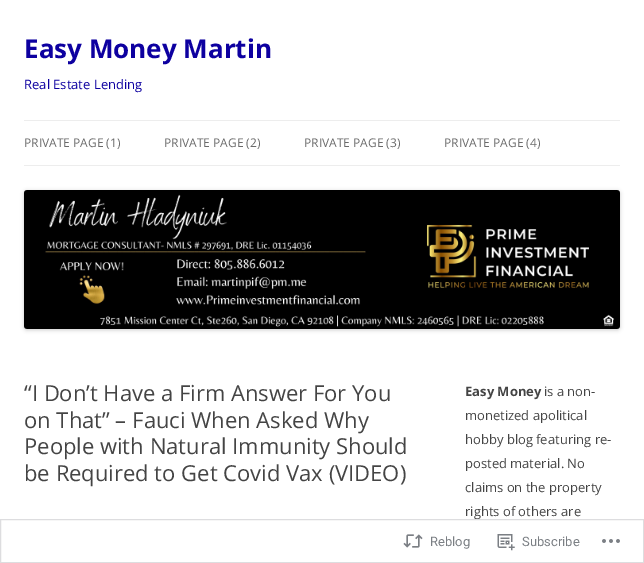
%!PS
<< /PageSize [644 563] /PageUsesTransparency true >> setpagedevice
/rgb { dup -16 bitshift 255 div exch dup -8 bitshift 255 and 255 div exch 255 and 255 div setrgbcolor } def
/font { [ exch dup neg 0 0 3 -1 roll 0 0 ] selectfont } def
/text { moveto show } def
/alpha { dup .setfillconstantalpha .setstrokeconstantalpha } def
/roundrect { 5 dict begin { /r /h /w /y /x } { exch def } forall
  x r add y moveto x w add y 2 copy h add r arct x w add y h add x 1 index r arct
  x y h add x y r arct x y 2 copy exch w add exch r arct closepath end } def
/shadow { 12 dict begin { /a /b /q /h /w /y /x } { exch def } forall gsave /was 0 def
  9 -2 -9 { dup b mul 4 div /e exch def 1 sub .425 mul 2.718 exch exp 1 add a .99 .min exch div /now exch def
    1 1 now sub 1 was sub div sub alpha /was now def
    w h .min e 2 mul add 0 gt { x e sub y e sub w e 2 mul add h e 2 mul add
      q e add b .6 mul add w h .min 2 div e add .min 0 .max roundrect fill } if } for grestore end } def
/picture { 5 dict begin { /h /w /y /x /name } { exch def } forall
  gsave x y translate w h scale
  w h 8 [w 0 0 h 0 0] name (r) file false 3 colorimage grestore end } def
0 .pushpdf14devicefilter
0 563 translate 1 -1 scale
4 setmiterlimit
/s1 { /OpenSans-Bold 26 font 16#0D00A0 rgb } def
/s2 { /OpenSans-Regular 13 font 16#0D00A0 rgb } def
/s3 { /OpenSans-Regular 12 font 16#6A6A6A rgb } def
/s4 { /OpenSans-Regular 22 font 16#444444 rgb } def
/s5 { /OpenSans-Bold 13 font 16#444444 rgb } def
/s6 { /OpenSans-Regular 13 font 16#444444 rgb } def
/s7 { /Roboto-Regular 13 font 16#7B7F84 rgb } def
16#FFFFFF rgb
0 0 644 563 rectfill
s1
(Easy Money Martin) 24 58 text
s2
(Real Estate Lending) 24 89 text
16#EDEDED rgb
24 120 596 1 rectfill
24 165 596 1 rectfill
s3
(PRIVATE PAGE \(1\)) 24 147 text
(PRIVATE PAGE \(2\)) 164 147 text
(PRIVATE PAGE \(3\)) 304 147 text
(PRIVATE PAGE \(4\)) 444 147 text
16#000000 rgb
24 191 596 139 3 2 0.2 shadow
(pic1.raw) 24 190 596 139 picture
s4
(“I Don’t Have a Firm Answer For You) 24 401 text
(on That” – Fauci When Asked Why) 24 428 text
(People with Natural Immunity Should) 24 454 text
(be Required to Get Covid Vax \(VIDEO\)) 24 481 text
s5
(Easy Money) 465 396 text
s6
(is a non-) 544 396 text
(monetized apolitical) 465 420 text
(hobby blog featuring re-) 465 444 text
(posted material. No) 465 468 text
(claims on the property) 465 492 text
(rights of others are) 465 516 text
0.98 alpha
16#FFFFFF rgb
475 519 3 1 rectfill
16#DCDCDE rgb
0.5 519.5 643 43 rectstroke
1 alpha
(pic2.raw) 403 534 20 14 picture
s7
(Reblog) 430 546 text
(pic3.raw) 497 534 18 17 picture
(Subscribe) 522 546 text
(pic4.raw) 602 539 18 4 picture
.poppdf14devicefilter showpage
